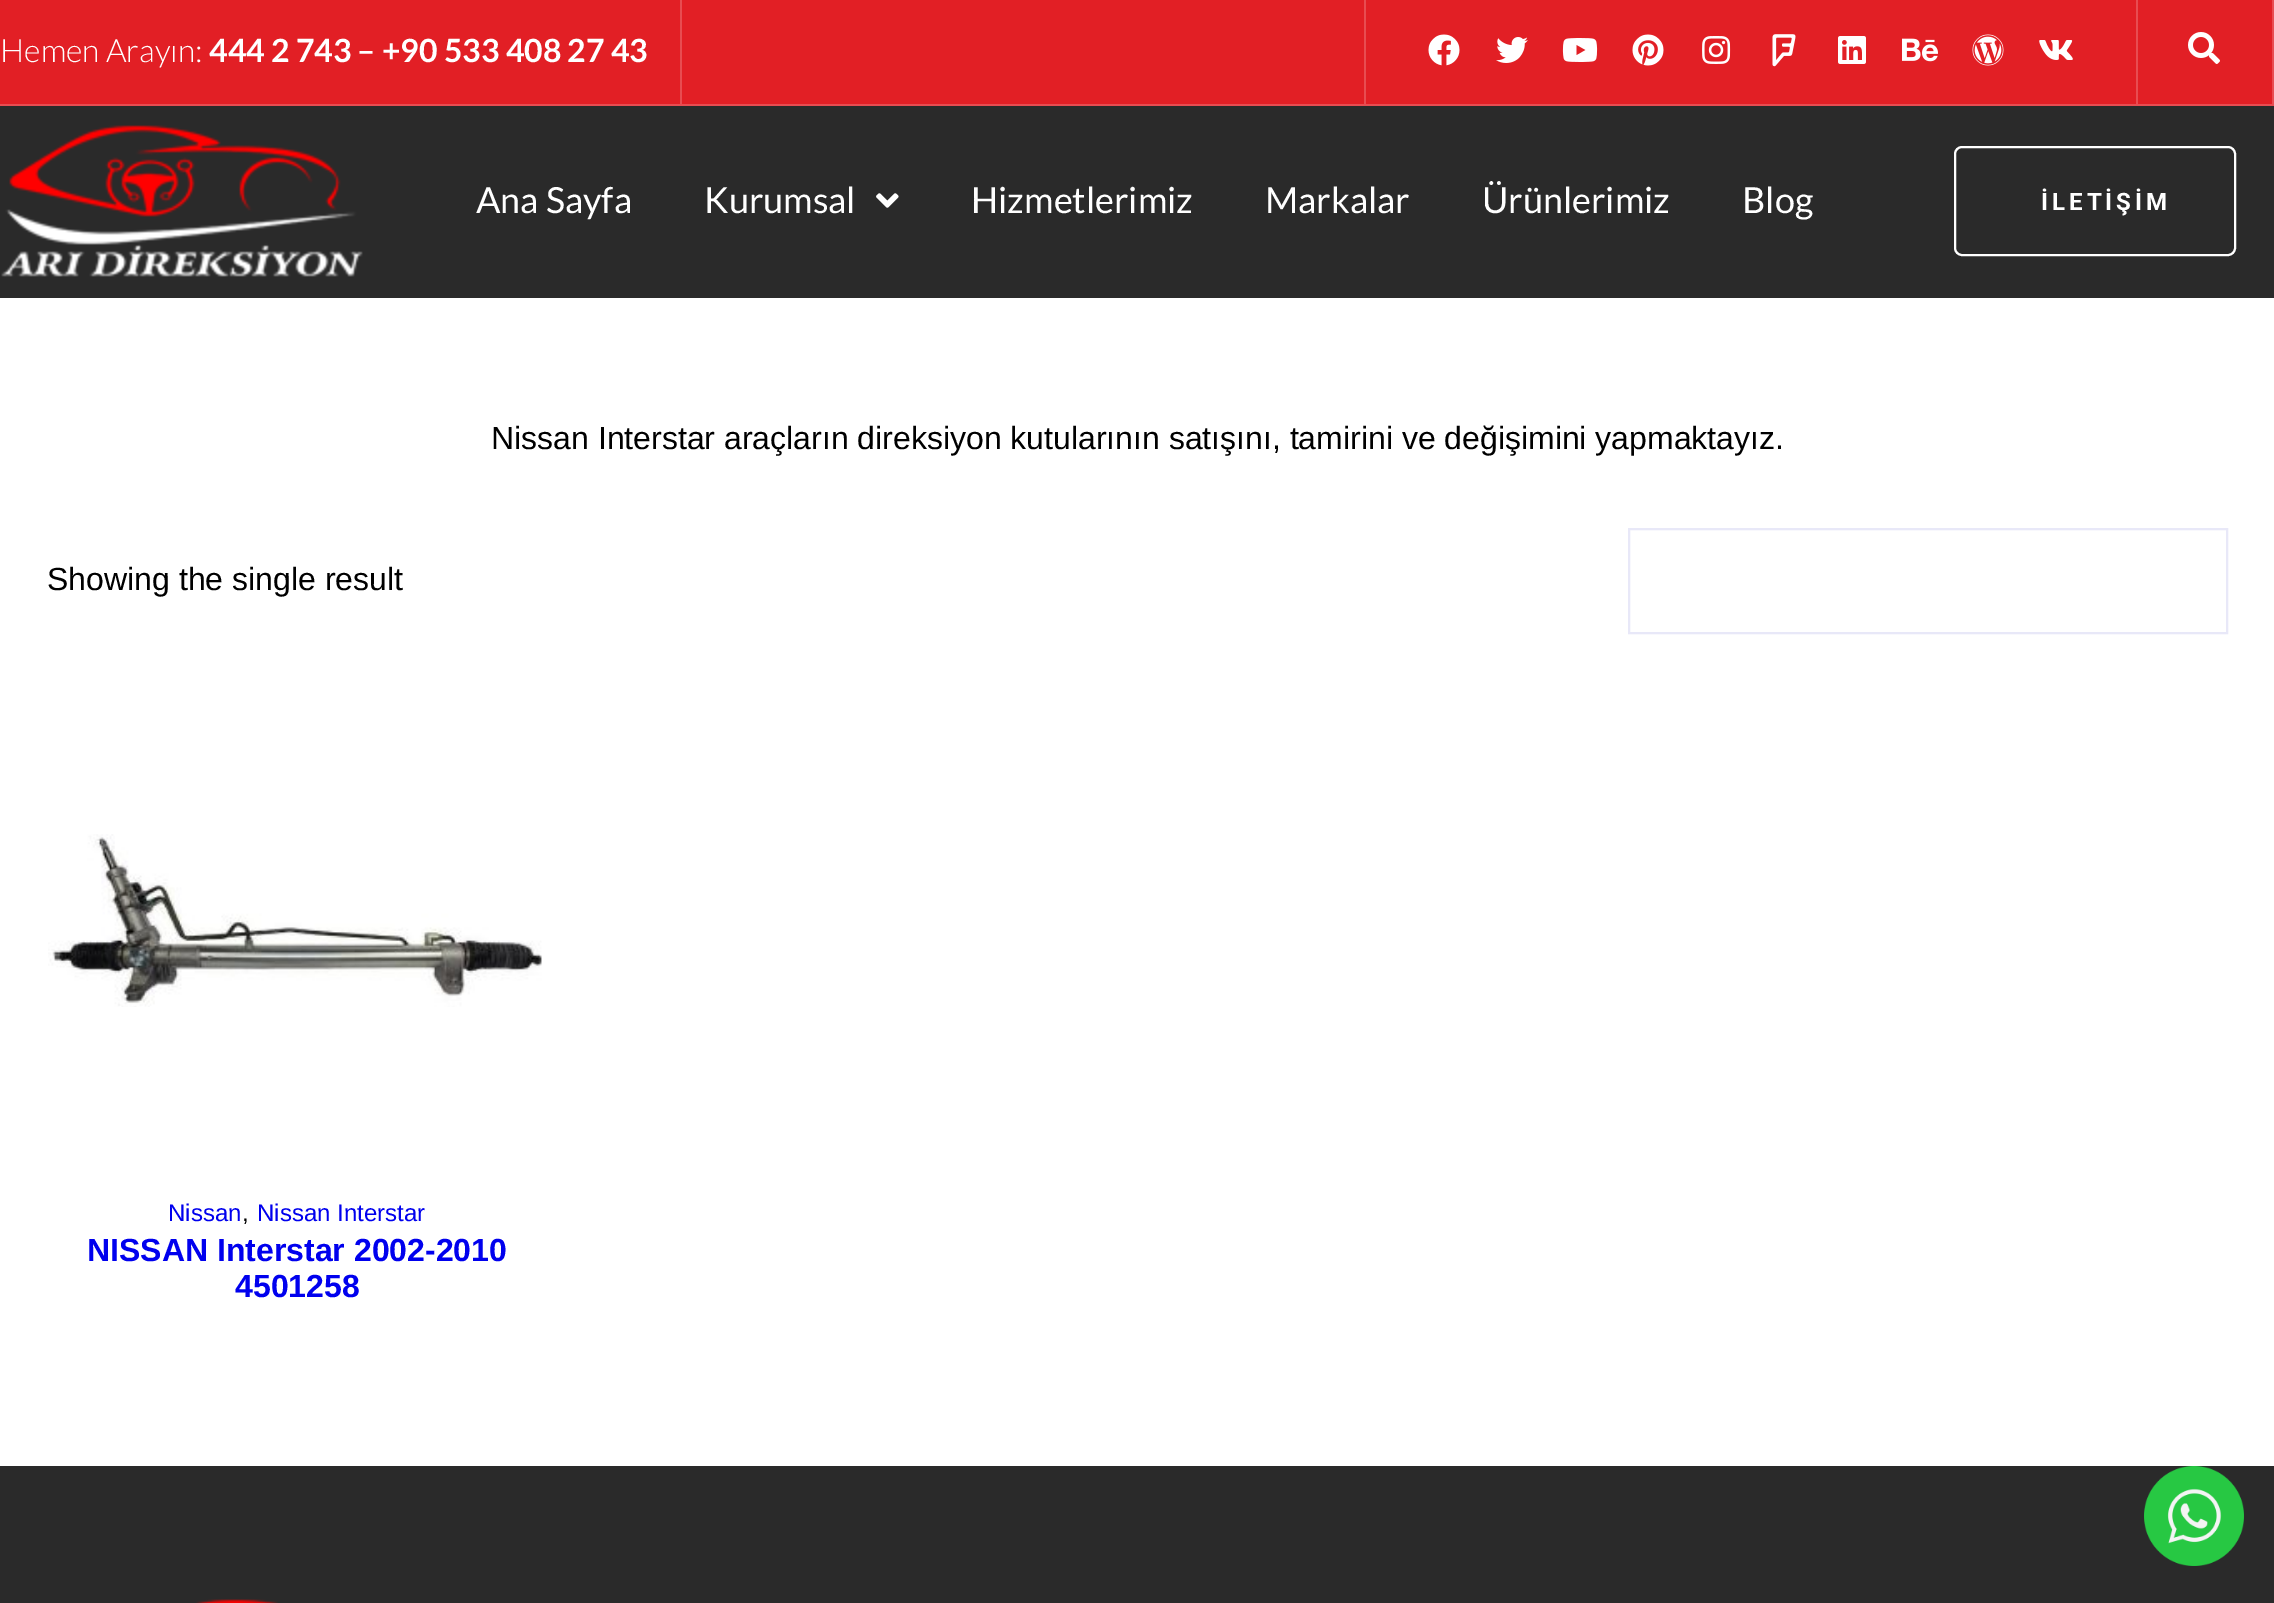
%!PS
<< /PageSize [2274 1603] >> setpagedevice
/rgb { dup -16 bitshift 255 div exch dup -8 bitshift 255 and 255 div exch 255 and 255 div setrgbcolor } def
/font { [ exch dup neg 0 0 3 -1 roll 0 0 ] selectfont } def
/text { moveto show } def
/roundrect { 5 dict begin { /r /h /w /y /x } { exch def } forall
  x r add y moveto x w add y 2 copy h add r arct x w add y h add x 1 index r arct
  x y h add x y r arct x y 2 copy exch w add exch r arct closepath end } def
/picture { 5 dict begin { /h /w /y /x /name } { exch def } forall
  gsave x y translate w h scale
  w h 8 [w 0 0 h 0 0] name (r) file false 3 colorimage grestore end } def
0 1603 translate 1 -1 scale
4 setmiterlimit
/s1 { /Lato-Light 32 font 16#FFFFFF rgb } def
/s2 { /Lato-Bold 32 font 16#FFFFFF rgb } def
/s3 { /Lato-Regular 36 font 16#FFFFFF rgb } def
/s4 { /LiberationSans-Regular 32 font 16#000000 rgb } def
/s5 { /LiberationSans-Regular 24 font 16#0000EE rgb } def
/s6 { /LiberationSans-Regular 24 font 16#000000 rgb } def
/s7 { /LiberationSans-Bold 32 font 16#0000EE rgb } def
16#FFFFFF rgb
0 0 2274 1603 rectfill
16#E21F25 rgb
0 0 2272 104 rectfill
16#E84C51 rgb
0 104 2274 2 rectfill
680 0 2 104 rectfill
s1
(Hemen Arayın:) 0 62 text
s2
(444 2 743 – +90 533 408 27 43) 209 62 text
16#E84C51 rgb
2136 0 2 104 rectfill
1364 0 2 104 rectfill
(pic1.raw) 1428 34 32 32 picture
(pic2.raw) 1496 37 32 26 picture
(pic3.raw) 1562 38 36 24 picture
(pic4.raw) 1632 34 32 32 picture
(pic5.raw) 1702 36 29 28 picture
(pic6.raw) 1772 34 24 33 picture
(pic7.raw) 1838 36 28 28 picture
(pic8.raw) 1902 38 36 24 picture
(pic9.raw) 1972 34 32 32 picture
(pic10.raw) 2039 40 34 20 picture
2272 0 2 104 rectfill
(pic11.raw) 2188 32 32 32 picture
16#2A2A2A rgb
0 106 2274 192 rectfill
(pic12.raw) 1 125 362 152 picture
s3
(Ana Sayfa) 476 213 text
(Kurumsal) 704 213 text
(pic13.raw) 876 193 23 15 picture
(Hizmetlerimiz) 971 213 text
(Markalar) 1265 213 text
(Ürünlerimiz) 1482 213 text
(Blog) 1742 213 text
2 setlinewidth
1955 147 280 108 7 roundrect stroke
/Roboto-Bold 24 font
2041 210 moveto 4 0 (İLETİŞİM) ashow
s4
(Nissan Interstar araçların direksiyon kutularının satışını, tamirini ve değişimini yapmaktayız.) 491 449 text
(Showing the single result) 47 590 text
16#E8E8F8 rgb
1629 529 598 104 rectstroke
(pic14.raw) 48 834 494 173 picture
s5
(Nissan) 168 1221 text
s6
(,) 242 1221 text
s5
(Nissan Interstar) 257 1221 text
s7
(NISSAN Interstar 2002-2010) 87 1261 text
(4501258) 235 1297 text
16#2A2A2A rgb
0 1466 2274 137 rectfill
(pic15.raw) 196 1599 82 4 picture
(pic16.raw) 2144 1466 100 100 picture
showpage
